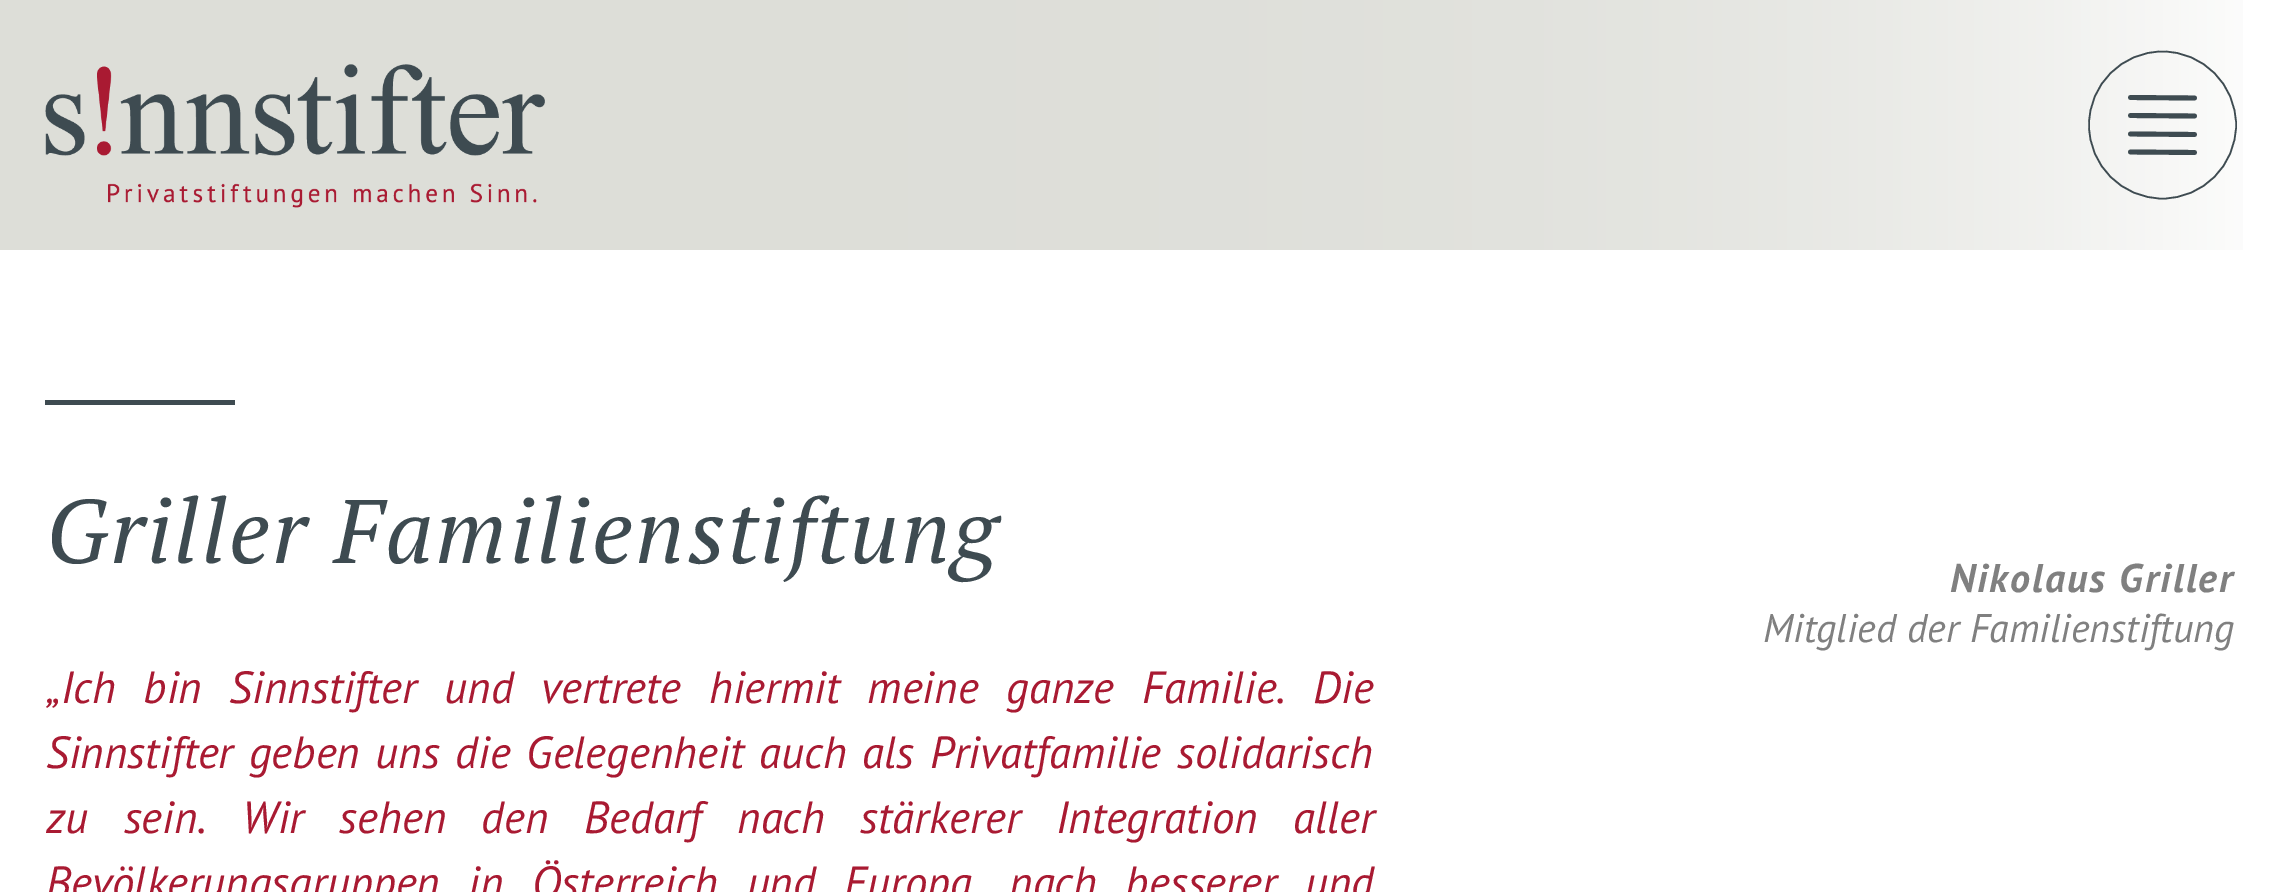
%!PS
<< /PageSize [2282 892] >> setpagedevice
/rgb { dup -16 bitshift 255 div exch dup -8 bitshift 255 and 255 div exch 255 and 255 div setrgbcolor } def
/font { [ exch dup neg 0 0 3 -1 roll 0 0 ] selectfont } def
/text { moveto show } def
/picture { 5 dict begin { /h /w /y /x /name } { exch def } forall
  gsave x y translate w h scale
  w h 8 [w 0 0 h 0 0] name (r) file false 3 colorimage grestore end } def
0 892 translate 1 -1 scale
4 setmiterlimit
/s1 { /PTSans-Italic 40 font 16#808080 rgb } def
16#FFFFFF rgb
0 0 2282 892 rectfill
(pic1.raw) 0 0 2243 250 picture
(pic2.raw) 45 64 500 144 picture
16#3E4B51 rgb
1.6 setlinewidth
2236 125 moveto 2236 165.5 2203 198.5 2162.5 198.5 curveto 2122 198.5 2089 165.5 2089 125 curveto 2089 84.5 2122 51.5 2162.5 51.5 curveto 2203 51.5 2236 84.5 2236 125 curveto closepath stroke
4.9 setlinewidth
1 setlinecap
2130.5 97.5 moveto 2194.5 98 lineto stroke
2130.5 115.5 moveto 2194.5 116 lineto stroke
2130.5 134 moveto 2194.5 134.5 lineto stroke
2130.5 152 moveto 2194.5 152.5 lineto stroke
45 400 190 5 rectfill
/PTSerif-Italic 90 font
46 563 moveto 2.5 0 (Griller Familienstiftung) ashow
/PTSans-Italic 45 font
16#A91A32 rgb
46 703 moveto 15.5 0 32 („Ich bin Sinnstifter und vertrete hiermit meine ganze Familie. Die) widthshow
46 768 moveto 3.5 0 32 (Sinnstifter geben uns die Gelegenheit auch als Privatfamilie solidarisch) widthshow
46 833 moveto 23.25 0 32 (zu sein. Wir sehen den Bedarf nach stärkerer Integration aller) widthshow
46 898 moveto 16.25 0 32 (Bevölkerungsgruppen in Österreich und Europa, nach besserer und) widthshow
/PTSans-BoldItalic 40 font
16#808080 rgb
1950 592 moveto 2 0 (Nikolaus Griller) ashow
s1
(Mitglied der Familienstiftung) 1763 642 text
showpage
